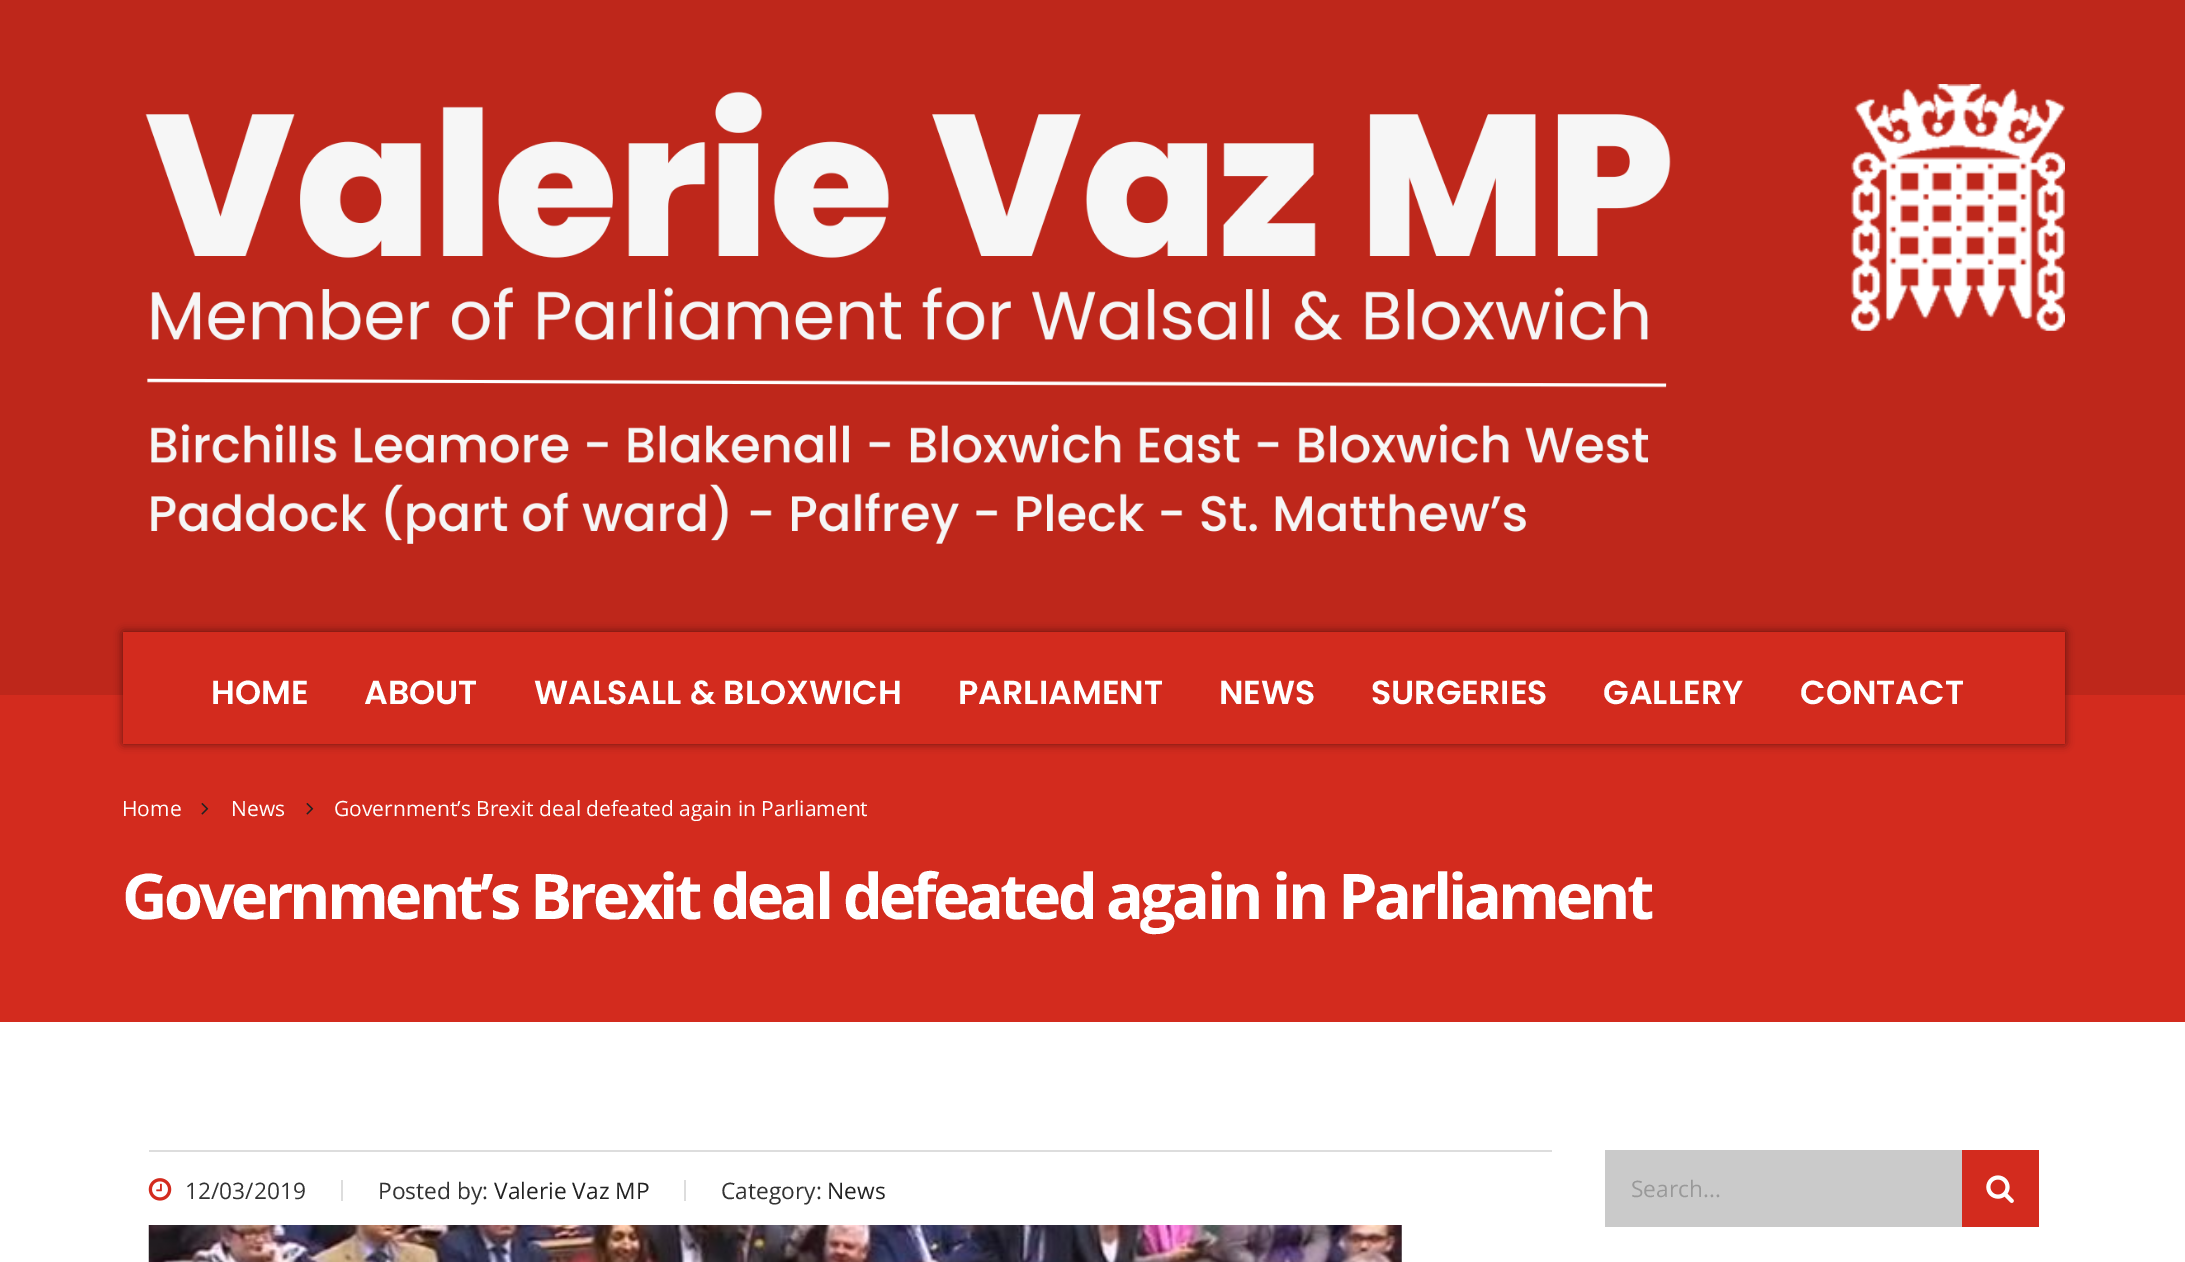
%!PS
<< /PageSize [2185 1262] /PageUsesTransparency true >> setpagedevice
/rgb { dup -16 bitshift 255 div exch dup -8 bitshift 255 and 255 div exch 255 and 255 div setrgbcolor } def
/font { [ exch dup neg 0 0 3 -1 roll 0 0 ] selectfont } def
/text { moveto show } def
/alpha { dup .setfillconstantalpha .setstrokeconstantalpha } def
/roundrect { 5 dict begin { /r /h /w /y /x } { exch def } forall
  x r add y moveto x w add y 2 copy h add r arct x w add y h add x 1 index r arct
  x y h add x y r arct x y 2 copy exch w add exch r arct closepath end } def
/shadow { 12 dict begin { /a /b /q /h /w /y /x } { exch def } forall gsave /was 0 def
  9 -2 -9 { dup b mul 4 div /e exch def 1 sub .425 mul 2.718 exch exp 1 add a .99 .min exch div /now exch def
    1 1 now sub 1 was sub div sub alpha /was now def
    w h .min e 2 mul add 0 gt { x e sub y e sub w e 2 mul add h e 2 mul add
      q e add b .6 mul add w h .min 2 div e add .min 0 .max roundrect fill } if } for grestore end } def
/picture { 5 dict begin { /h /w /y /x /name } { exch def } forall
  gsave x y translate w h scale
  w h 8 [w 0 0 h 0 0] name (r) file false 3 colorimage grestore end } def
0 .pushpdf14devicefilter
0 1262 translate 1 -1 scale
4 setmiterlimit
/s1 { /Poppins-SemiBold 33.25 font 16#FFFFFF rgb } def
/s2 { /OpenSans-Regular 21 font 16#FFFFFF rgb } def
/s3 { /OpenSans-Regular 22.75 font 16#333333 rgb } def
/s4 { /OpenSans-Regular 22.75 font 16#222222 rgb } def
/s5 { /OpenSans-Regular 22.75 font 16#999999 rgb } def
16#FFFFFF rgb
0 0 2185 1262 rectfill
16#BE271B rgb
0 0 2185 695 rectfill
(pic1.raw) 145 91 1526 453 picture
(pic2.raw) 1851 84 214 247 picture
16#D32B1E rgb
0 695 2185 327 rectfill
16#000000 rgb
123 632 1942 112 0 4.5 0.52 shadow
16#D32B1E rgb
123 632 1942 112 rectfill
s1
(HOME) 211 704 text
(ABOUT) 364 704 text
(WALSALL & BLOXWICH) 534 704 text
(PARLIAMENT) 958 704 text
(NEWS) 1219 704 text
(SURGERIES) 1371 704 text
(GALLERY) 1603 704 text
(CONTACT) 1800 704 text
s2
(Home) 122 816 text
(pic3.raw) 201 803 8 12 picture
(News) 231 816 text
(pic3.raw) 306 803 8 12 picture
(Government’s Brexit deal defeated again in Parliament) 334 816 text
/OpenSans-Bold 63 font
122 919 moveto -3.78 0 (Government’s Brexit deal defeated again in Parliament) ashow
16#DDDDDD rgb
149 1150 1403 2 rectfill
(pic4.raw) 148 1178 24 23 picture
s3
(12/03/2019) 185 1199 text
16#DDDDDD rgb
341 1180 2 21 rectfill
s3
(Posted by:) 378 1199 text
s4
(Valerie Vaz MP) 494 1199 text
16#DDDDDD rgb
684 1180 2 21 rectfill
s3
(Category:) 721 1199 text
s4
(News) 827 1199 text
(pic5.raw) 148 1225 1254 37 picture
16#CACACA rgb
1605 1150 357 77 rectfill
s5
(Search...) 1631 1197 text
16#D32B1E rgb
1962 1150 77 77 rectfill
(pic6.raw) 1986 1175 28 28 picture
.poppdf14devicefilter showpage
